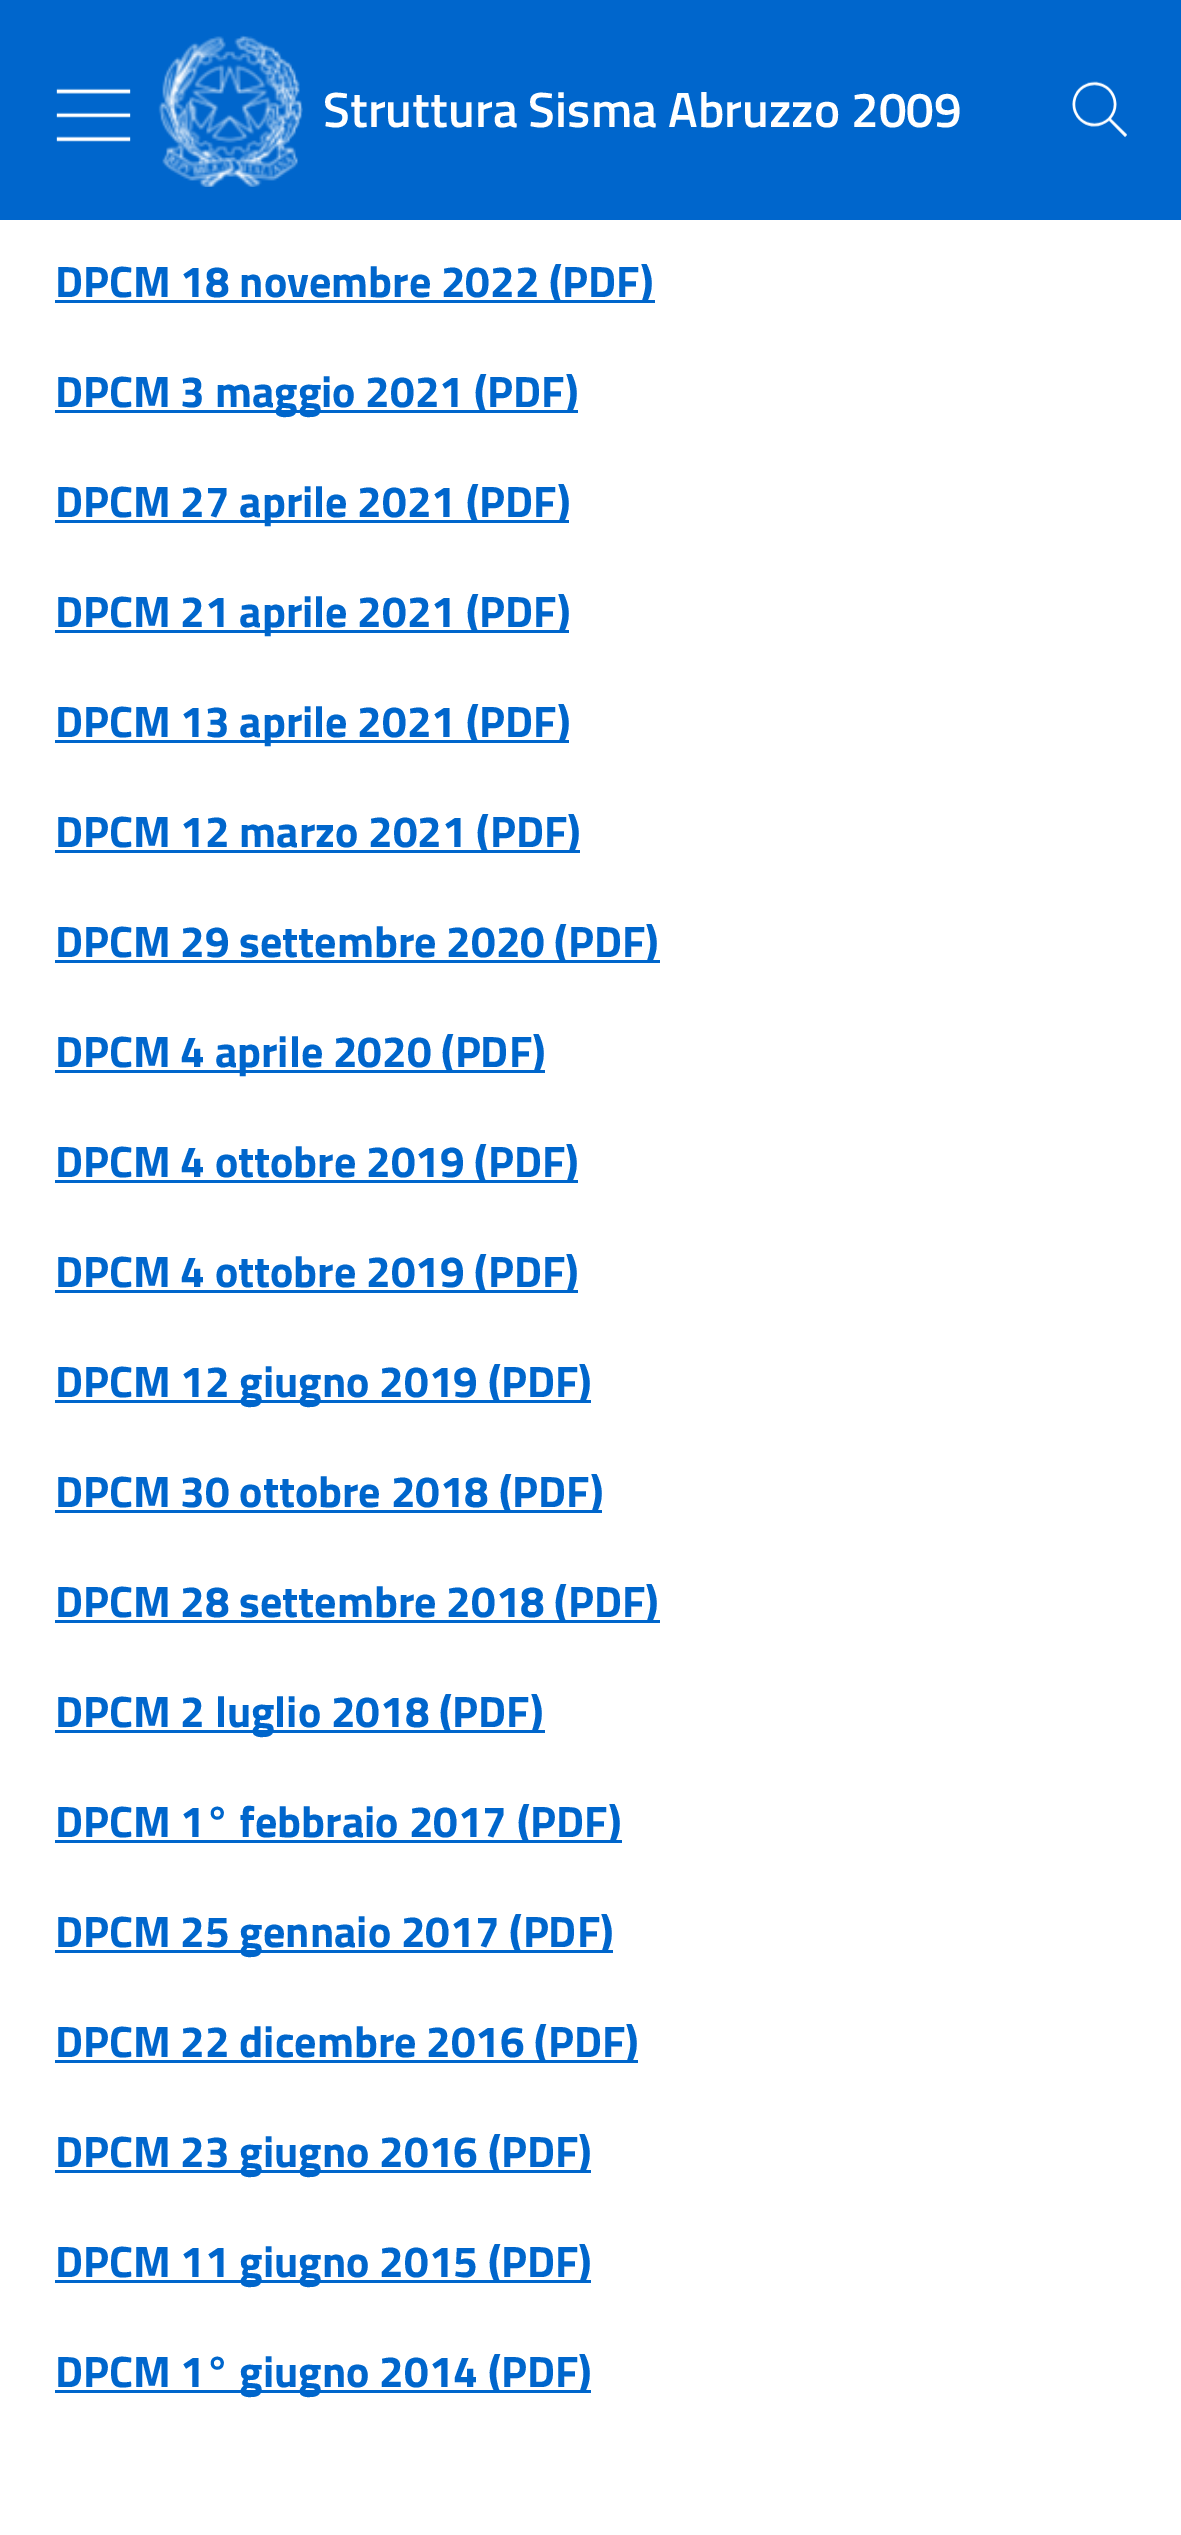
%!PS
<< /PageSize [1181 2535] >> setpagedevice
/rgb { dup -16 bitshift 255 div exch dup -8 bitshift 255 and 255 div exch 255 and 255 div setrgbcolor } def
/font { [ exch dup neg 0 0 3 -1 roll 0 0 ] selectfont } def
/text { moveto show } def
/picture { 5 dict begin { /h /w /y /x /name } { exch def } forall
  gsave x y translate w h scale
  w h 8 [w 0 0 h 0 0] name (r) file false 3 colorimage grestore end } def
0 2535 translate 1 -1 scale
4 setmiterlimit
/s1 { /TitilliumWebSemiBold-SemiBold 49.5 font 16#FFFFFF rgb } def
/s2 { /TitilliumWeb-Bold 44 font 16#0066CC rgb } def
16#FFFFFF rgb
0 0 1181 2535 rectfill
16#0066CC rgb
0 0 1181 220 rectfill
(pic1.raw) 56 88 75 54 picture
(pic2.raw) 158 35 145 152 picture
s1
(Struttura Sisma Abruzzo 2009) 323 127 text
(pic3.raw) 1072 81 55 57 picture
16#0066CC rgb
55 300 600 3 rectfill
s2
(DPCM 18 novembre 2022 \(PDF\)) 55 297 text
55 410 523 3 rectfill
(DPCM 3 maggio 2021 \(PDF\)) 55 407 text
55 520 514 3 rectfill
(DPCM 27 aprile 2021 \(PDF\)) 55 517 text
55 630 514 3 rectfill
(DPCM 21 aprile 2021 \(PDF\)) 55 627 text
55 740 514 3 rectfill
(DPCM 13 aprile 2021 \(PDF\)) 55 737 text
55 850 525 3 rectfill
(DPCM 12 marzo 2021 \(PDF\)) 55 847 text
55 960 605 3 rectfill
(DPCM 29 settembre 2020 \(PDF\)) 55 957 text
55 1070 490 3 rectfill
(DPCM 4 aprile 2020 \(PDF\)) 55 1067 text
55 1180 523 3 rectfill
(DPCM 4 ottobre 2019 \(PDF\)) 55 1177 text
55 1290 523 3 rectfill
(DPCM 4 ottobre 2019 \(PDF\)) 55 1287 text
55 1400 536 3 rectfill
(DPCM 12 giugno 2019 \(PDF\)) 55 1397 text
55 1510 547 3 rectfill
(DPCM 30 ottobre 2018 \(PDF\)) 55 1507 text
55 1620 605 3 rectfill
(DPCM 28 settembre 2018 \(PDF\)) 55 1617 text
55 1730 490 3 rectfill
(DPCM 2 luglio 2018 \(PDF\)) 55 1727 text
55 1840 567 3 rectfill
(DPCM 1° febbraio 2017 \(PDF\)) 55 1837 text
55 1950 558 3 rectfill
(DPCM 25 gennaio 2017 \(PDF\)) 55 1947 text
55 2060 583 3 rectfill
(DPCM 22 dicembre 2016 \(PDF\)) 55 2057 text
55 2170 536 3 rectfill
(DPCM 23 giugno 2016 \(PDF\)) 55 2167 text
55 2280 536 3 rectfill
(DPCM 11 giugno 2015 \(PDF\)) 55 2277 text
55 2390 536 3 rectfill
(DPCM 1° giugno 2014 \(PDF\)) 55 2387 text
showpage
